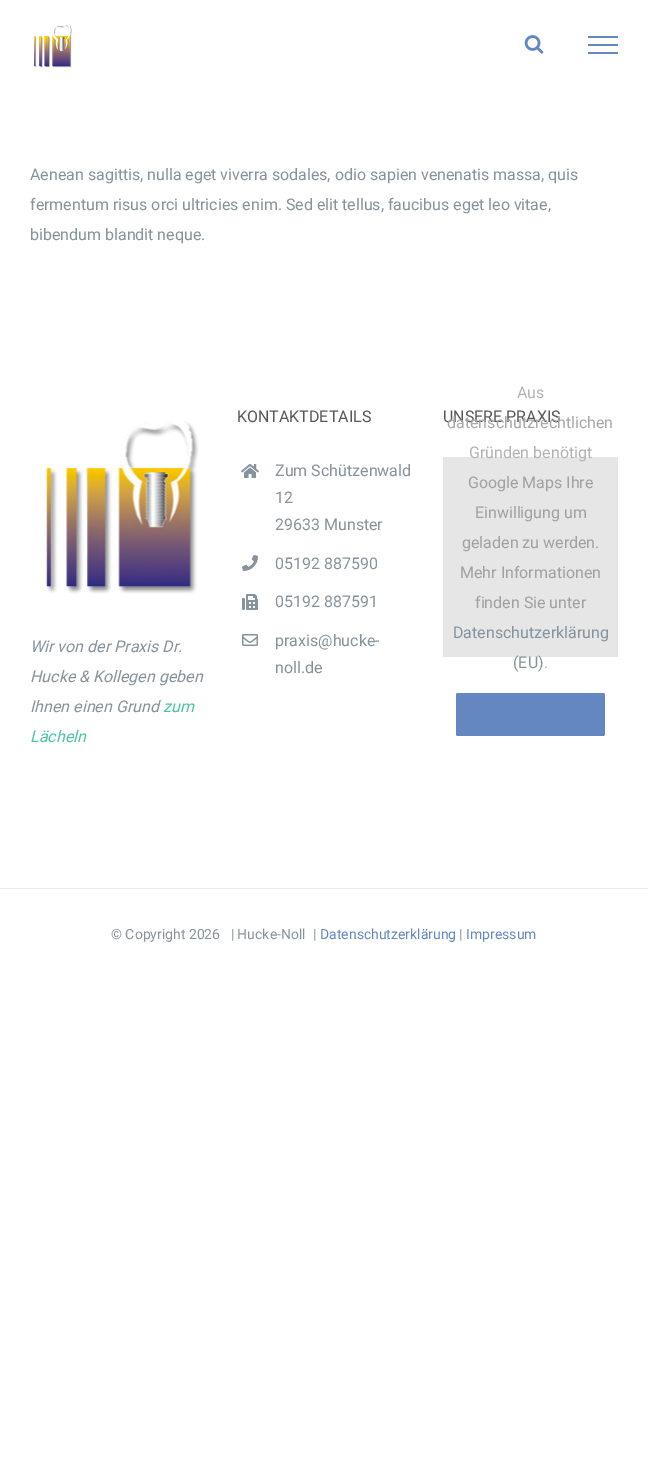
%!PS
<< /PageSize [648 1473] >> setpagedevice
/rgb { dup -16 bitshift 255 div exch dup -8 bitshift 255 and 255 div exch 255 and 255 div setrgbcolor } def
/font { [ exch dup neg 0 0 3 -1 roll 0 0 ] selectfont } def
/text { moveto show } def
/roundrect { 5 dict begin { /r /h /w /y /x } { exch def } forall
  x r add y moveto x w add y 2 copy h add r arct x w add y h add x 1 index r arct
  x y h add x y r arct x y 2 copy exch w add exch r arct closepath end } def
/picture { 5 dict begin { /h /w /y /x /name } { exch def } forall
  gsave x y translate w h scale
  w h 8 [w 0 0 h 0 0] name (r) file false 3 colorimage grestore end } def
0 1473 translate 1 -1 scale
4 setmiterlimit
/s1 { /Roboto-Regular 16 font 16#86939E rgb } def
/s2 { /Roboto-Regular 16 font 16#56585A rgb } def
/s3 { /Roboto-Regular 16 font 16#B3B3B3 rgb } def
/s4 { /Roboto-Regular 16 font 16#A8A8A9 rgb } def
/s5 { /Roboto-Regular 16 font 16#A1A1A1 rgb } def
/s6 { /Roboto-Italic 16 font 16#86939E rgb } def
/s7 { /Roboto-Italic 16 font 16#4FC3A3 rgb } def
/s8 { /Roboto-Regular 14 font 16#86939E rgb } def
/s9 { /Roboto-Regular 14 font 16#6487C2 rgb } def
16#FFFFFF rgb
0 0 648 1473 rectfill
(pic1.raw) 34 24 38 44 picture
(pic2.raw) 524 35 20 19 picture
16#6487C2 rgb
588 36 30 2 rectfill
588 44 30 2 rectfill
588 52 30 2 rectfill
s1
(Aenean sagittis, nulla eget viverra sodales, odio sapien venenatis massa, quis) 30 180 text
(fermentum risus orci ultricies enim. Sed elit tellus, faucibus eget leo vitae,) 30 210 text
(bibendum blandit neque.) 30 240 text
s2
(KONTAKTDETAILS) 237 422 text
(pic3.raw) 241 464 18 14 picture
s1
(Zum Schützenwald) 275 476 text
(12) 275 503 text
(29633 Munster) 275 530 text
(pic4.raw) 242 555 16 16 picture
(05192 887590) 275 569 text
(pic5.raw) 242 594 16 16 picture
(05192 887591) 275 607 text
(pic6.raw) 242 634 16 12 picture
(praxis@hucke-) 275 646 text
(noll.de) 275 673 text
16#E6E6E6 rgb
443 457 175 200 rectfill
s3
(Aus) 517 398 text
s2
(UNSERE PRAXIS) 443 422 text
s4
(datenschutzrechtlichen) 447 428 text
s3
(Gründen benötigt) 469 458 text
s5
(Google Maps Ihre) 468 488 text
(Einwilligung um) 475 518 text
(geladen zu werden.) 462 548 text
(Mehr Informationen) 460 578 text
(finden Sie unter) 475 608 text
s1
(Datenschutzerklärung) 453 638 text
(\(EU\)) 513 668 text
s3
(.) 544 668 text
16#6487C2 rgb
456 693 149 43 2 roundrect fill
(pic7.raw) 46 421 153 173 picture
s6
(Wir von der Praxis Dr.) 30 652 text
(Hucke & Kollegen geben) 30 682 text
(Ihnen einen Grund) 30 712 text
s7
(zum) 163 712 text
(Lächeln) 30 742 text
16#EAEAEA rgb
0 888 648 1 rectfill
s8
(© Copyright 2026   | Hucke-Noll  |) 111 939 text
s9
(Datenschutzerklärung) 320 939 text
s8
(|) 459 939 text
s9
(Impressum) 466 939 text
showpage
